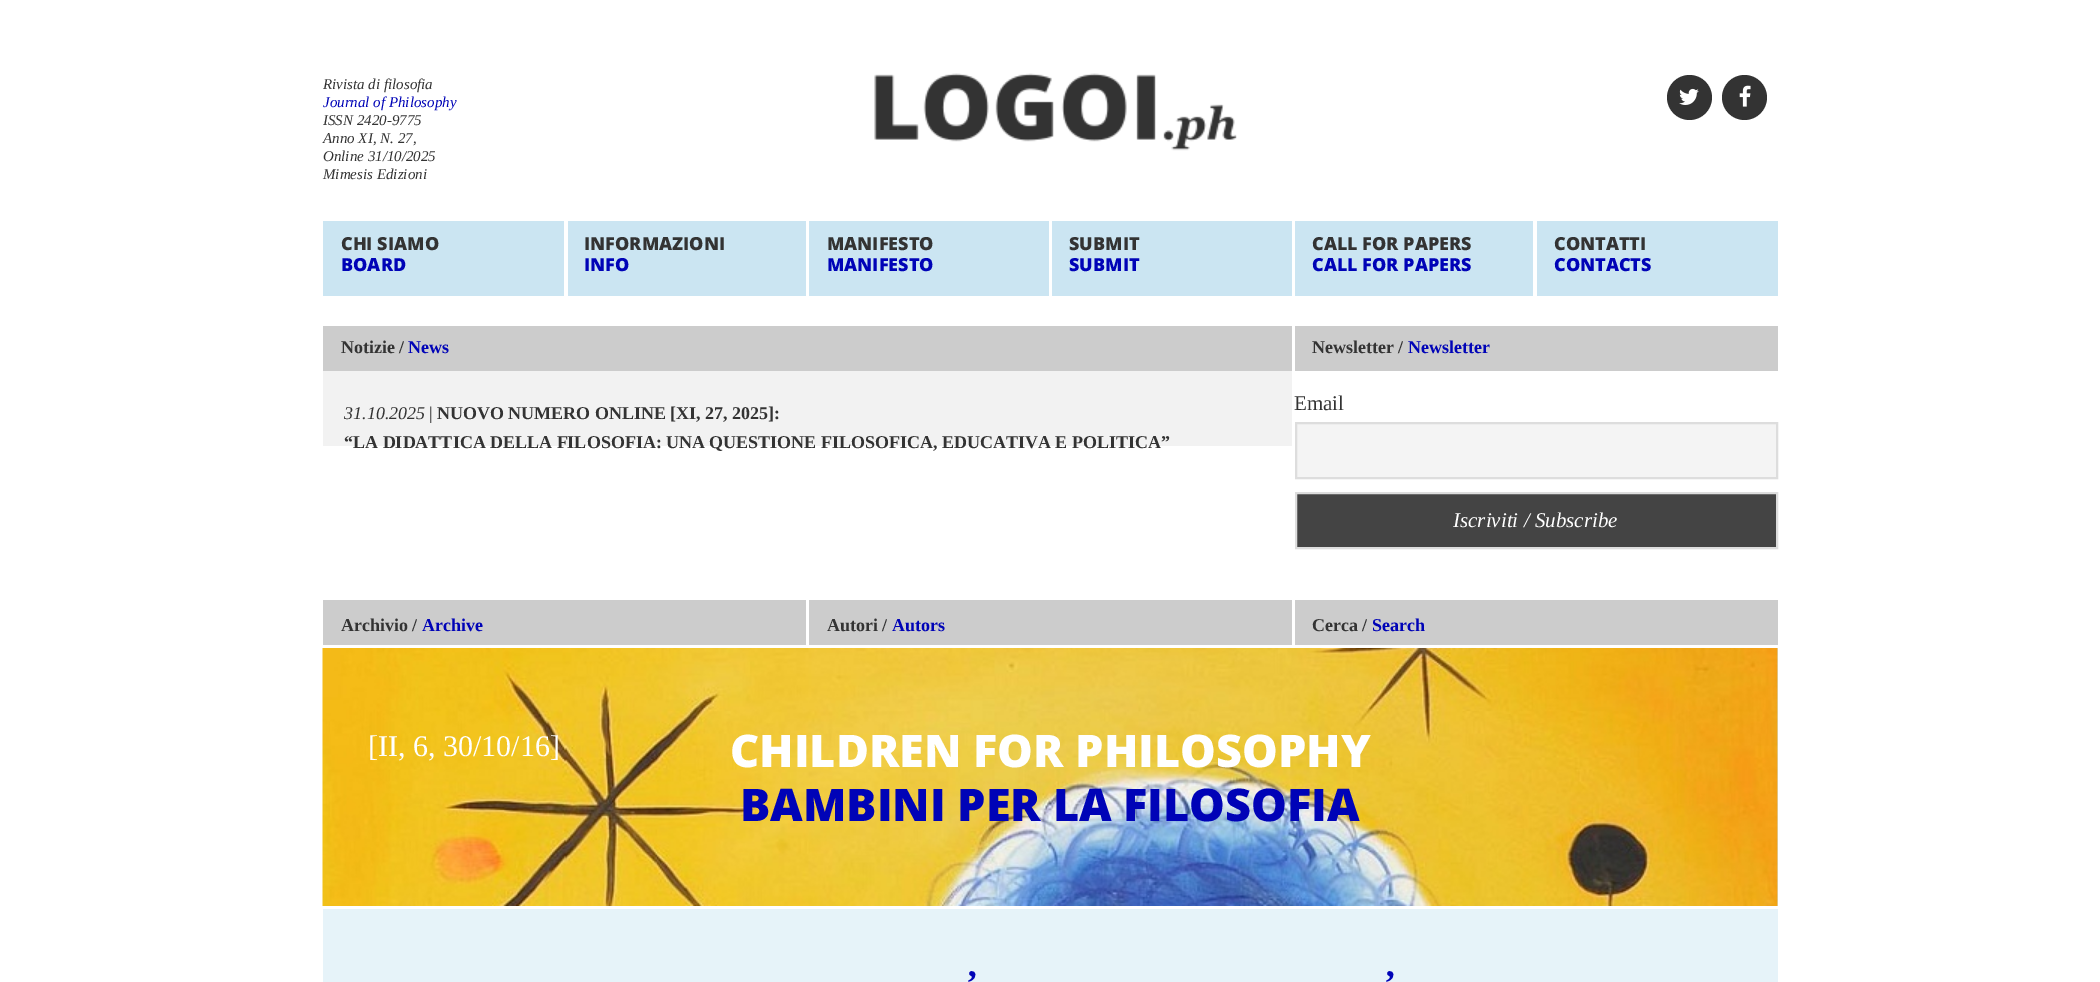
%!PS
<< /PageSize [2100 982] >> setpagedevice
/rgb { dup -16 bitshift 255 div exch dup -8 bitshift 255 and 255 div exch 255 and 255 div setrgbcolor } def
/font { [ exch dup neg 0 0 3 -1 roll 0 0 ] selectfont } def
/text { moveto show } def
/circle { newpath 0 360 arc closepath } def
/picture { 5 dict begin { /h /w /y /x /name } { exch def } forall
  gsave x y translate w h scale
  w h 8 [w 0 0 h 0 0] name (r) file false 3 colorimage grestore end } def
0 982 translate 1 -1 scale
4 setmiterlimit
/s1 { /LiberationSerif-Italic 15 font 16#333333 rgb } def
/s2 { /LiberationSerif-Italic 15 font 16#0003B7 rgb } def
/s3 { /OpenSans-ExtraBold 18 font 16#333333 rgb } def
/s4 { /OpenSans-ExtraBold 18 font 16#0003B7 rgb } def
/s5 { /LiberationSerif-Bold 18 font 16#333333 rgb } def
/s6 { /LiberationSerif-Bold 18 font 16#0003B7 rgb } def
/s7 { /LiberationSerif-Italic 18 font 16#333333 rgb } def
/s8 { /LiberationSerif-Regular 18 font 16#333333 rgb } def
/s9 { /LiberationSerif-Regular 21 font 16#333333 rgb } def
/s10 { /LiberationSerif-Italic 21 font 16#FFFFFF rgb } def
/s11 { /LiberationSerif-Regular 30 font 16#FFFFFF rgb } def
/s12 { /OpenSans-ExtraBold 45 font 16#FFFFFF rgb } def
/s13 { /OpenSans-ExtraBold 45 font 16#0003B7 rgb } def
/s14 { /LiberationSerif-Bold 36 font 16#0003B7 rgb } def
16#FFFFFF rgb
0 0 2100 982 rectfill
s1
(Rivista di filosofia) 323 89 text
s2
(Journal of Philosophy) 323 107 text
s1
(ISSN 2420-9775) 323 125 text
(Anno XI, N. 27,) 323 143 text
(Online 31/10/2025) 323 161 text
(Mimesis Edizioni) 323 179 text
(pic1.raw) 874 73 363 78 picture
1689.5 97.5 22.5 circle fill
(pic2.raw) 1679 88 20 17 picture
1744.5 97.5 22.5 circle fill
(pic3.raw) 1739 85 12 22 picture
16#CBE5F2 rgb
323 221 241 75 rectfill
s3
(CHI SIAMO) 341 250 text
s4
(BOARD) 341 271 text
16#CBE5F2 rgb
568 221 238 75 rectfill
s3
(INFORMAZIONI) 584 250 text
s4
(INFO) 584 271 text
16#CBE5F2 rgb
809 221 240 75 rectfill
s3
(MANIFESTO) 827 250 text
s4
(MANIFESTO) 827 271 text
16#CBE5F2 rgb
1052 221 240 75 rectfill
s3
(SUBMIT) 1069 250 text
s4
(SUBMIT) 1069 271 text
16#CBE5F2 rgb
1295 221 238 75 rectfill
s3
(CALL FOR PAPERS) 1312 250 text
s4
(CALL FOR PAPERS) 1312 271 text
16#CBE5F2 rgb
1537 221 241 75 rectfill
s3
(CONTATTI) 1554 250 text
s4
(CONTACTS) 1554 271 text
16#CCCCCC rgb
323 326 969 45 rectfill
s5
(Notizie /) 341 353 text
s6
(News) 408 353 text
16#F2F2F2 rgb
323 371 969 75 rectfill
s7
(31.10.2025) 344 419 text
s8
(|) 429 419 text
s5
(NUOVO NUMERO ONLINE [XI, 27, 2025]:) 437 419 text
(“LA DIDATTICA DELLA FILOSOFIA: UNA QUESTIONE FILOSOFICA, EDUCATIVA E POLITICA”) 344 448 text
16#CCCCCC rgb
1295 326 483 45 rectfill
s5
(Newsletter /) 1312 353 text
s6
(Newsletter) 1408 353 text
s9
(Email) 1294 410 text
16#F4F4F4 rgb
1296 423 moveto 1777 423 lineto 1777 478 lineto 1296 478 lineto closepath gsave fill grestore
16#DDDDDD rgb
2 setlinewidth
stroke
16#444444 rgb
1296 493 moveto 1777 493 lineto 1777 548 lineto 1296 548 lineto closepath gsave fill grestore
16#DDDDDD rgb
stroke
s10
(Iscriviti / Subscribe) 1453 527 text
16#CCCCCC rgb
323 600 483 45 rectfill
s5
(Archivio /) 341 631 text
s6
(Archive) 422 631 text
16#CCCCCC rgb
809 600 483 45 rectfill
s5
(Autori /) 827 631 text
s6
(Autors) 892 631 text
16#CCCCCC rgb
1295 600 483 45 rectfill
s5
(Cerca /) 1312 631 text
s6
(Search) 1372 631 text
16#CBE5F2 rgb
1777 648 1 258 rectfill
(pic4.raw) 322 648 1456 258 picture
s11
([II, 6, 30/10/16]) 368 756 text
s12
(CHILDREN FOR PHILOSOPHY) 730 767 text
s13
(BAMBINI PER LA FILOSOFIA) 740 821 text
16#E6F3F9 rgb
323 909 1455 73 rectfill
s14
(’) 966 995 text
(’) 1384 995 text
showpage
